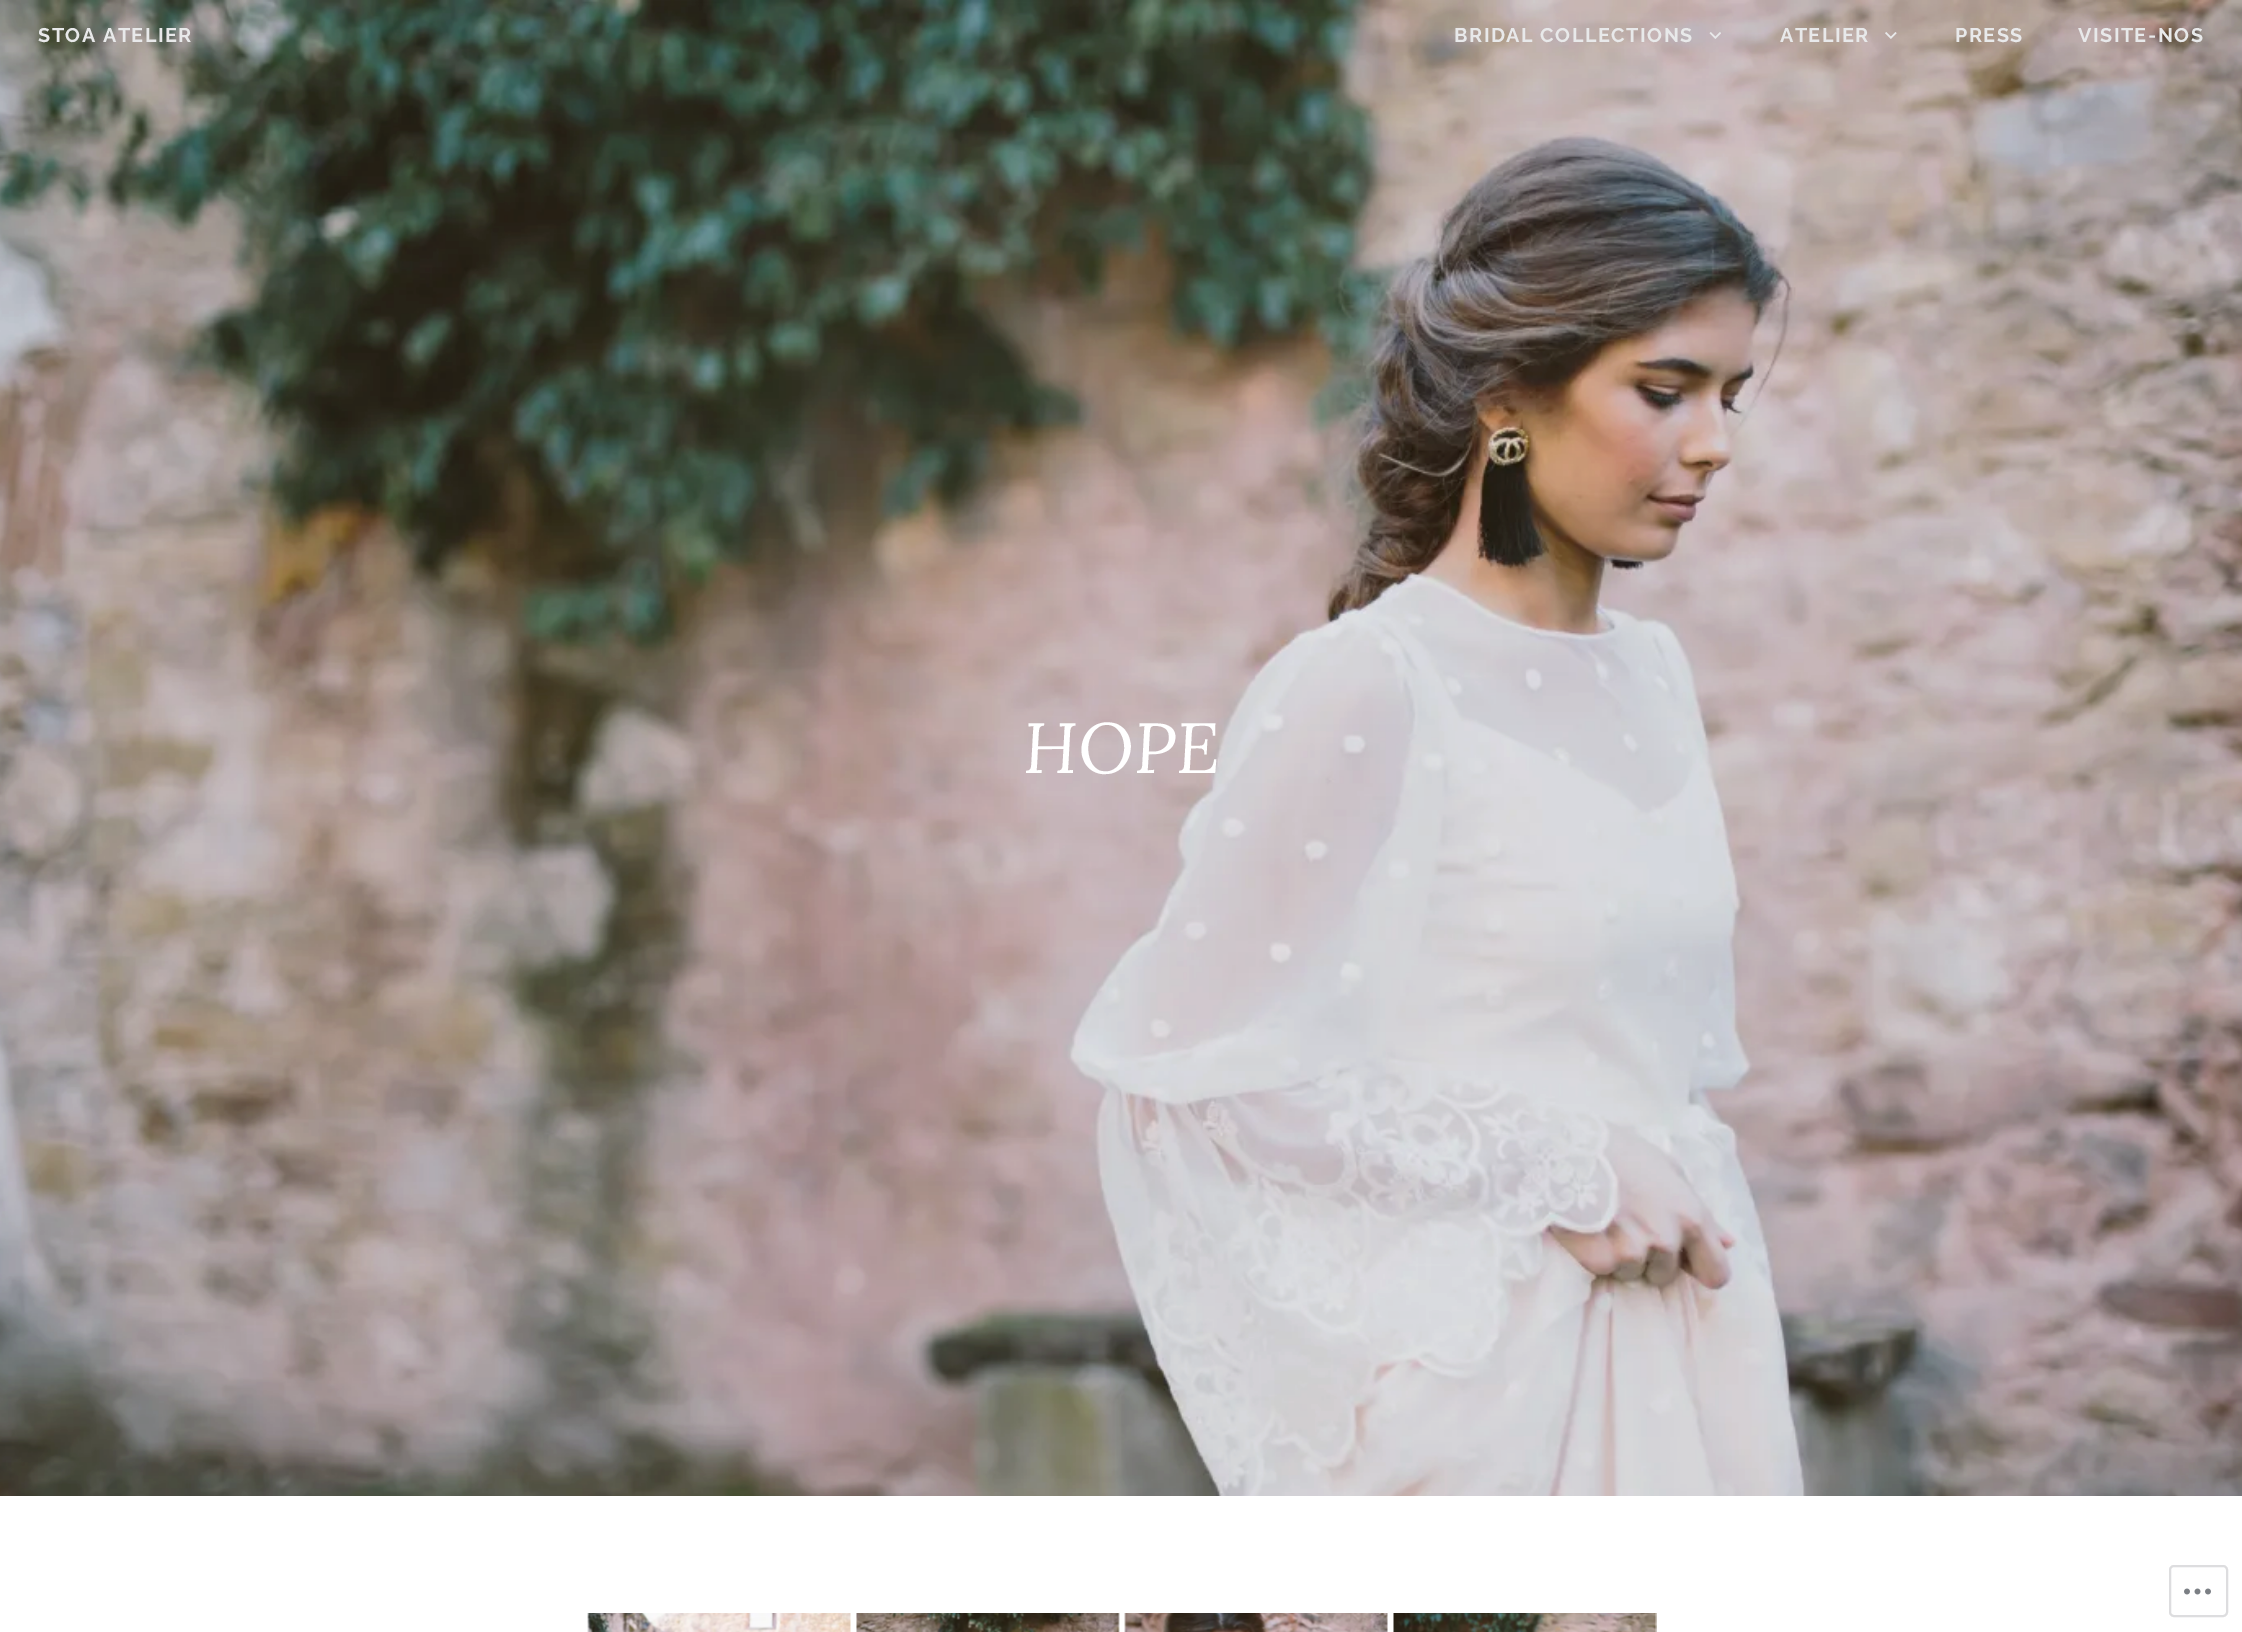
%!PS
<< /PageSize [2242 1632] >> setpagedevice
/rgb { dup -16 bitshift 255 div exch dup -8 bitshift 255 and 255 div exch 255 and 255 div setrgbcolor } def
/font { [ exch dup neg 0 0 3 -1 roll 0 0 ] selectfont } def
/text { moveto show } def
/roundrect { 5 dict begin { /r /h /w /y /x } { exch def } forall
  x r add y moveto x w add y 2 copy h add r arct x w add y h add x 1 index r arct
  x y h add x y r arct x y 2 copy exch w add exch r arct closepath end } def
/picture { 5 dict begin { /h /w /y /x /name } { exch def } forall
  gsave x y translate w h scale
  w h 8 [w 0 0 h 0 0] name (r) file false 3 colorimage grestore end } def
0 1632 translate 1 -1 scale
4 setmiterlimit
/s1 { /Lora-Italic 71 font 16#FFFFFF rgb } def
16#FFFFFF rgb
0 0 2242 1632 rectfill
(pic1.raw) 0 0 2242 1496 picture
/Raleway-Bold 19.75 font
16#E8E9EA rgb
38 42 moveto 1.5 0 (STOA ATELIER) ashow
1454 42 moveto 1.5 0 (BRIDAL COLLECTIONS) ashow
(pic2.raw) 1709 32 12 7 picture
1780 42 moveto 1.5 0 (ATELIER) ashow
(pic3.raw) 1885 32 12 7 picture
1955 42 moveto 1.5 0 (PRESS) ashow
2078 42 moveto 1.5 0 (VISITE-NOS) ashow
s1
(HOPE) 1023 773 text
(pic4.raw) 587 1613 264 19 picture
(pic5.raw) 856 1613 264 19 picture
(pic6.raw) 1124 1613 264 19 picture
(pic7.raw) 1393 1613 264 19 picture
16#DDDDDF rgb
2 setlinewidth
2170 1566 57 50 4 roundrect stroke
(pic8.raw) 2184 1588 27 7 picture
showpage
